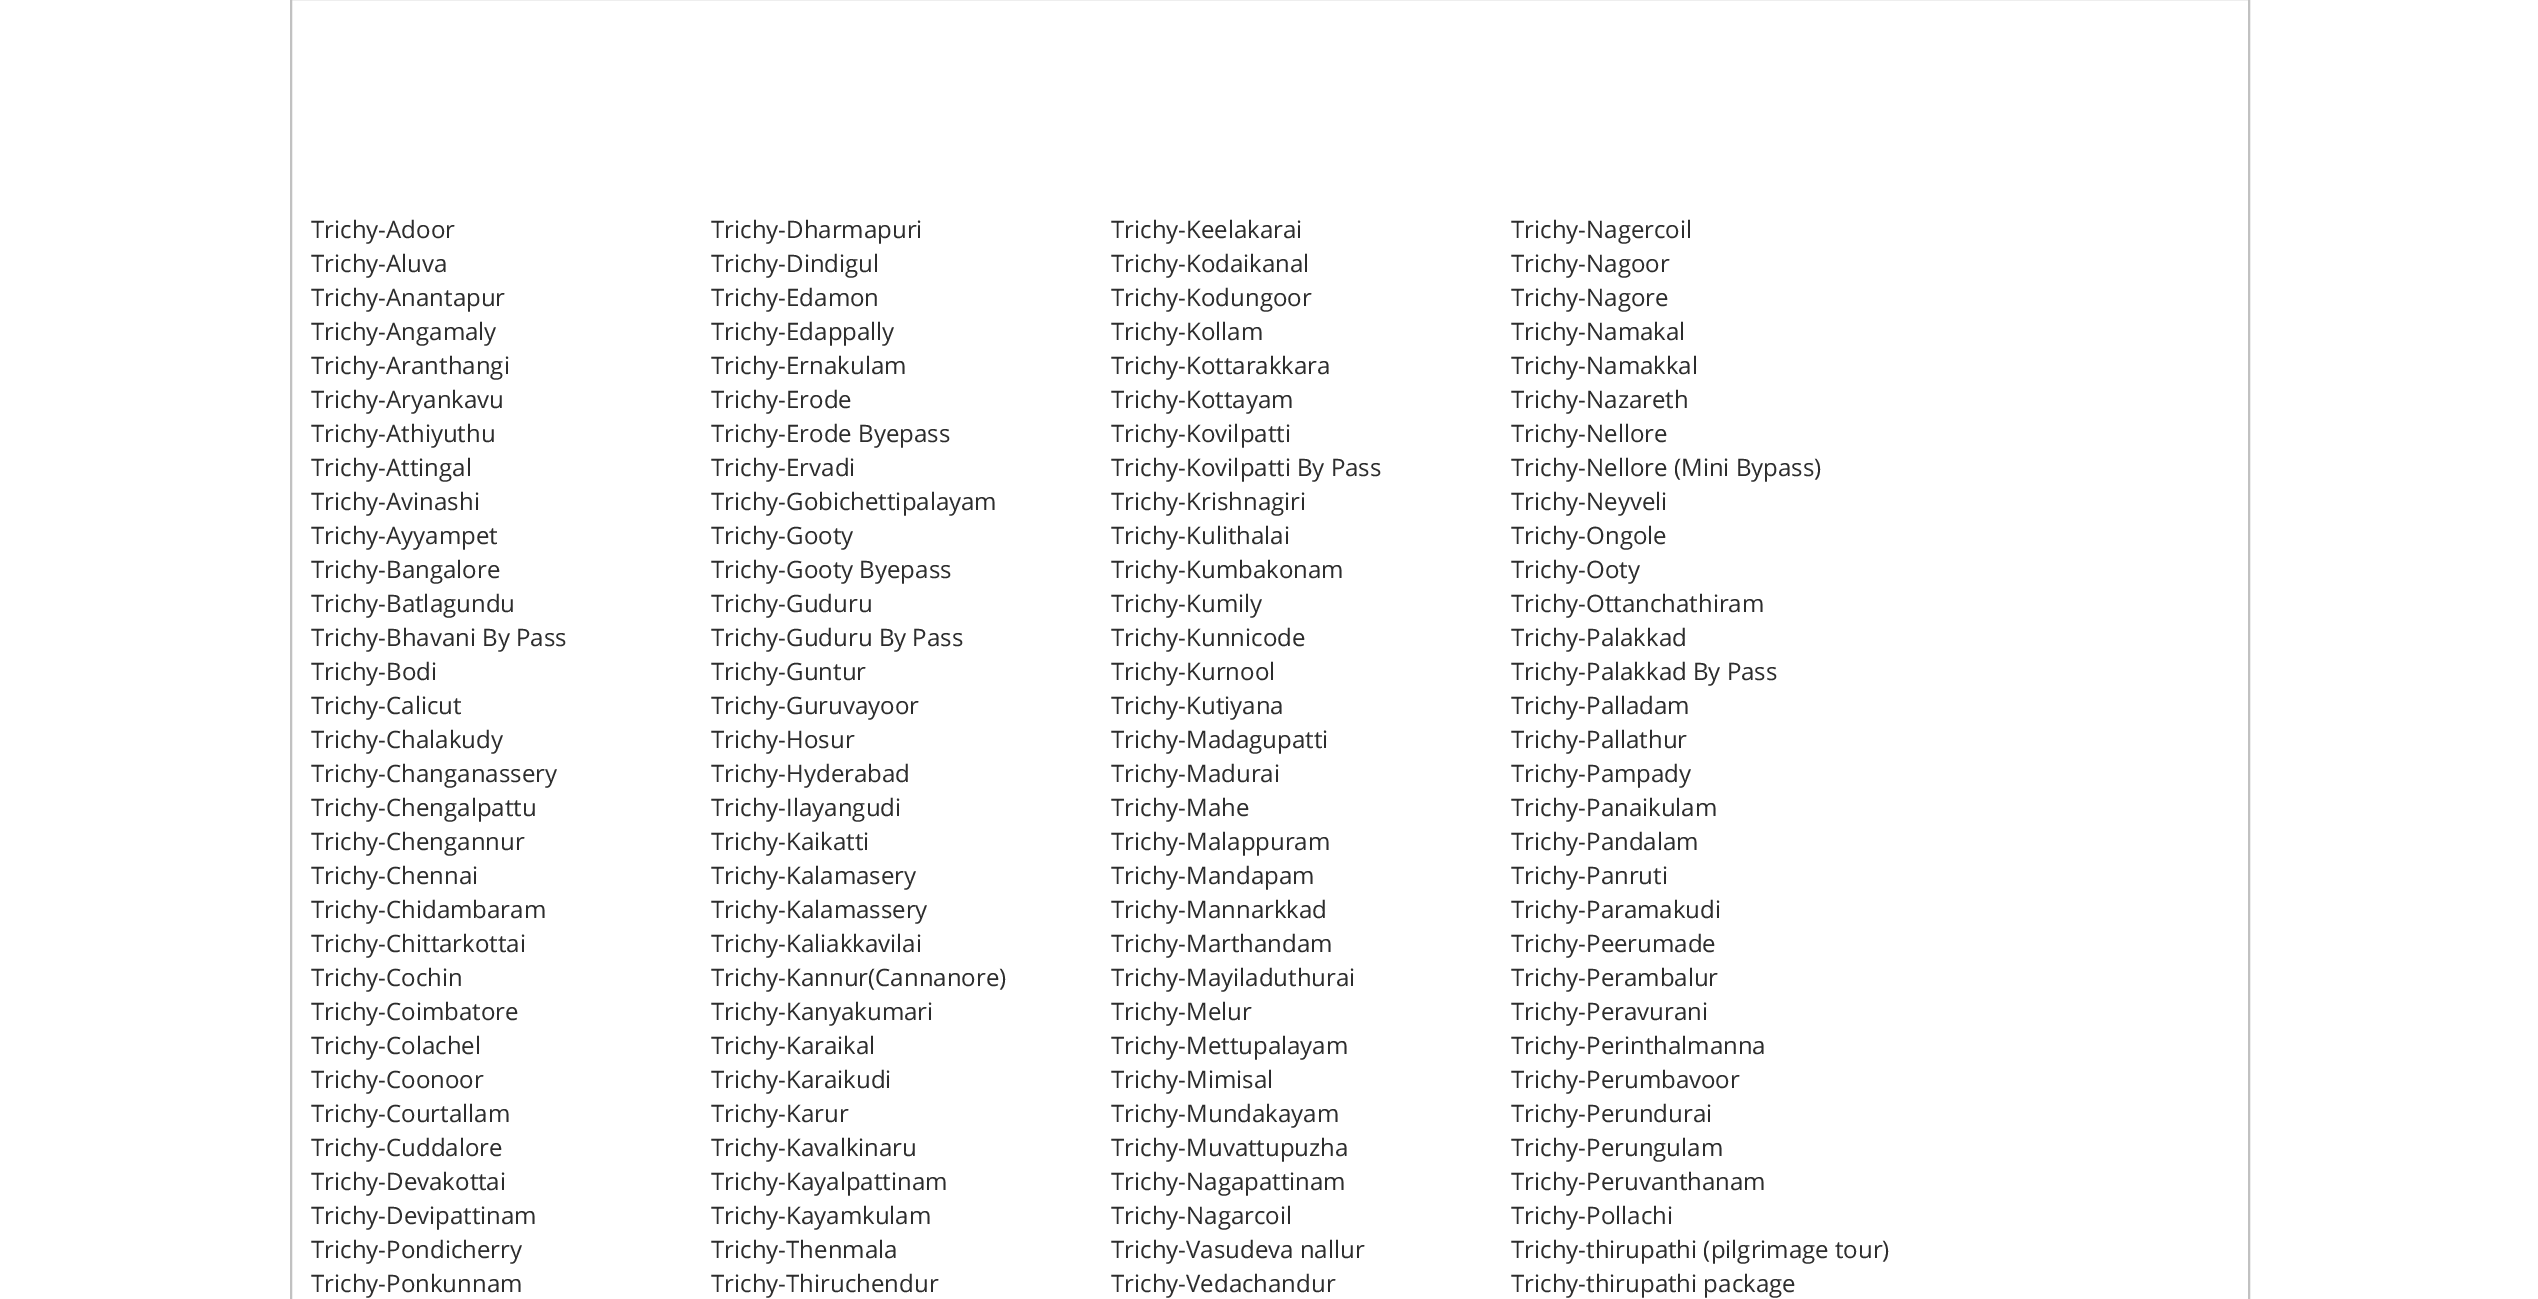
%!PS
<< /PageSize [2538 1299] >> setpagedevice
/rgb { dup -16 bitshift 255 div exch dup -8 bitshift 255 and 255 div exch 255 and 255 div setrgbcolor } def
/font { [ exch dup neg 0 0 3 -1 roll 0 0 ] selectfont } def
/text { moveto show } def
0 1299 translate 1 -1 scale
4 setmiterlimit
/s1 { /OpenSans-Regular 24 font 16#2D2D2D rgb } def
16#FFFFFF rgb
0 0 2538 1299 rectfill
16#C1C1C1 rgb
2 setlinewidth
291 -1 1958 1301 rectstroke
s1
(Trichy-Adoor) 311 238 text
(Trichy-Aluva) 311 272 text
(Trichy-Anantapur) 311 306 text
(Trichy-Angamaly) 311 340 text
(Trichy-Aranthangi) 311 374 text
(Trichy-Aryankavu) 311 408 text
(Trichy-Athiyuthu) 311 442 text
(Trichy-Attingal) 311 476 text
(Trichy-Avinashi) 311 510 text
(Trichy-Ayyampet) 311 544 text
(Trichy-Bangalore) 311 578 text
(Trichy-Batlagundu) 311 612 text
(Trichy-Bhavani By Pass) 311 646 text
(Trichy-Bodi) 311 680 text
(Trichy-Calicut) 311 714 text
(Trichy-Chalakudy) 311 748 text
(Trichy-Changanassery) 311 782 text
(Trichy-Chengalpattu) 311 816 text
(Trichy-Chengannur) 311 850 text
(Trichy-Chennai) 311 884 text
(Trichy-Chidambaram) 311 918 text
(Trichy-Chittarkottai) 311 952 text
(Trichy-Cochin) 311 986 text
(Trichy-Coimbatore) 311 1020 text
(Trichy-Colachel) 311 1054 text
(Trichy-Coonoor) 311 1088 text
(Trichy-Courtallam) 311 1122 text
(Trichy-Cuddalore) 311 1156 text
(Trichy-Devakottai) 311 1190 text
(Trichy-Devipattinam) 311 1224 text
(Trichy-Dharmapuri) 711 238 text
(Trichy-Dindigul) 711 272 text
(Trichy-Edamon) 711 306 text
(Trichy-Edappally) 711 340 text
(Trichy-Ernakulam) 711 374 text
(Trichy-Erode) 711 408 text
(Trichy-Erode Byepass) 711 442 text
(Trichy-Ervadi) 711 476 text
(Trichy-Gobichettipalayam) 711 510 text
(Trichy-Gooty) 711 544 text
(Trichy-Gooty Byepass) 711 578 text
(Trichy-Guduru) 711 612 text
(Trichy-Guduru By Pass) 711 646 text
(Trichy-Guntur) 711 680 text
(Trichy-Guruvayoor) 711 714 text
(Trichy-Hosur) 711 748 text
(Trichy-Hyderabad) 711 782 text
(Trichy-Ilayangudi) 711 816 text
(Trichy-Kaikatti) 711 850 text
(Trichy-Kalamasery) 711 884 text
(Trichy-Kalamassery) 711 918 text
(Trichy-Kaliakkavilai) 711 952 text
(Trichy-Kannur\(Cannanore\)) 711 986 text
(Trichy-Kanyakumari) 711 1020 text
(Trichy-Karaikal) 711 1054 text
(Trichy-Karaikudi) 711 1088 text
(Trichy-Karur) 711 1122 text
(Trichy-Kavalkinaru) 711 1156 text
(Trichy-Kayalpattinam) 711 1190 text
(Trichy-Kayamkulam) 711 1224 text
(Trichy-Keelakarai) 1111 238 text
(Trichy-Kodaikanal) 1111 272 text
(Trichy-Kodungoor) 1111 306 text
(Trichy-Kollam) 1111 340 text
(Trichy-Kottarakkara) 1111 374 text
(Trichy-Kottayam) 1111 408 text
(Trichy-Kovilpatti) 1111 442 text
(Trichy-Kovilpatti By Pass) 1111 476 text
(Trichy-Krishnagiri) 1111 510 text
(Trichy-Kulithalai) 1111 544 text
(Trichy-Kumbakonam) 1111 578 text
(Trichy-Kumily) 1111 612 text
(Trichy-Kunnicode) 1111 646 text
(Trichy-Kurnool) 1111 680 text
(Trichy-Kutiyana) 1111 714 text
(Trichy-Madagupatti) 1111 748 text
(Trichy-Madurai) 1111 782 text
(Trichy-Mahe) 1111 816 text
(Trichy-Malappuram) 1111 850 text
(Trichy-Mandapam) 1111 884 text
(Trichy-Mannarkkad) 1111 918 text
(Trichy-Marthandam) 1111 952 text
(Trichy-Mayiladuthurai) 1111 986 text
(Trichy-Melur) 1111 1020 text
(Trichy-Mettupalayam) 1111 1054 text
(Trichy-Mimisal) 1111 1088 text
(Trichy-Mundakayam) 1111 1122 text
(Trichy-Muvattupuzha) 1111 1156 text
(Trichy-Nagapattinam) 1111 1190 text
(Trichy-Nagarcoil) 1111 1224 text
(Trichy-Nagercoil) 1511 238 text
(Trichy-Nagoor) 1511 272 text
(Trichy-Nagore) 1511 306 text
(Trichy-Namakal) 1511 340 text
(Trichy-Namakkal) 1511 374 text
(Trichy-Nazareth) 1511 408 text
(Trichy-Nellore) 1511 442 text
(Trichy-Nellore \(Mini Bypass\)) 1511 476 text
(Trichy-Neyveli) 1511 510 text
(Trichy-Ongole) 1511 544 text
(Trichy-Ooty) 1511 578 text
(Trichy-Ottanchathiram) 1511 612 text
(Trichy-Palakkad) 1511 646 text
(Trichy-Palakkad By Pass) 1511 680 text
(Trichy-Palladam) 1511 714 text
(Trichy-Pallathur) 1511 748 text
(Trichy-Pampady) 1511 782 text
(Trichy-Panaikulam) 1511 816 text
(Trichy-Pandalam) 1511 850 text
(Trichy-Panruti) 1511 884 text
(Trichy-Paramakudi) 1511 918 text
(Trichy-Peerumade) 1511 952 text
(Trichy-Perambalur) 1511 986 text
(Trichy-Peravurani) 1511 1020 text
(Trichy-Perinthalmanna) 1511 1054 text
(Trichy-Perumbavoor) 1511 1088 text
(Trichy-Perundurai) 1511 1122 text
(Trichy-Perungulam) 1511 1156 text
(Trichy-Peruvanthanam) 1511 1190 text
(Trichy-Pollachi) 1511 1224 text
(Trichy-Pondicherry) 311 1258 text
(Trichy-Ponkunnam) 311 1292 text
(Trichy-Thenmala) 711 1258 text
(Trichy-Thiruchendur) 711 1292 text
(Trichy-Vasudeva nallur) 1111 1258 text
(Trichy-Vedachandur) 1111 1292 text
(Trichy-thirupathi \(pilgrimage tour\)) 1511 1258 text
(Trichy-thirupathi package) 1511 1292 text
showpage
